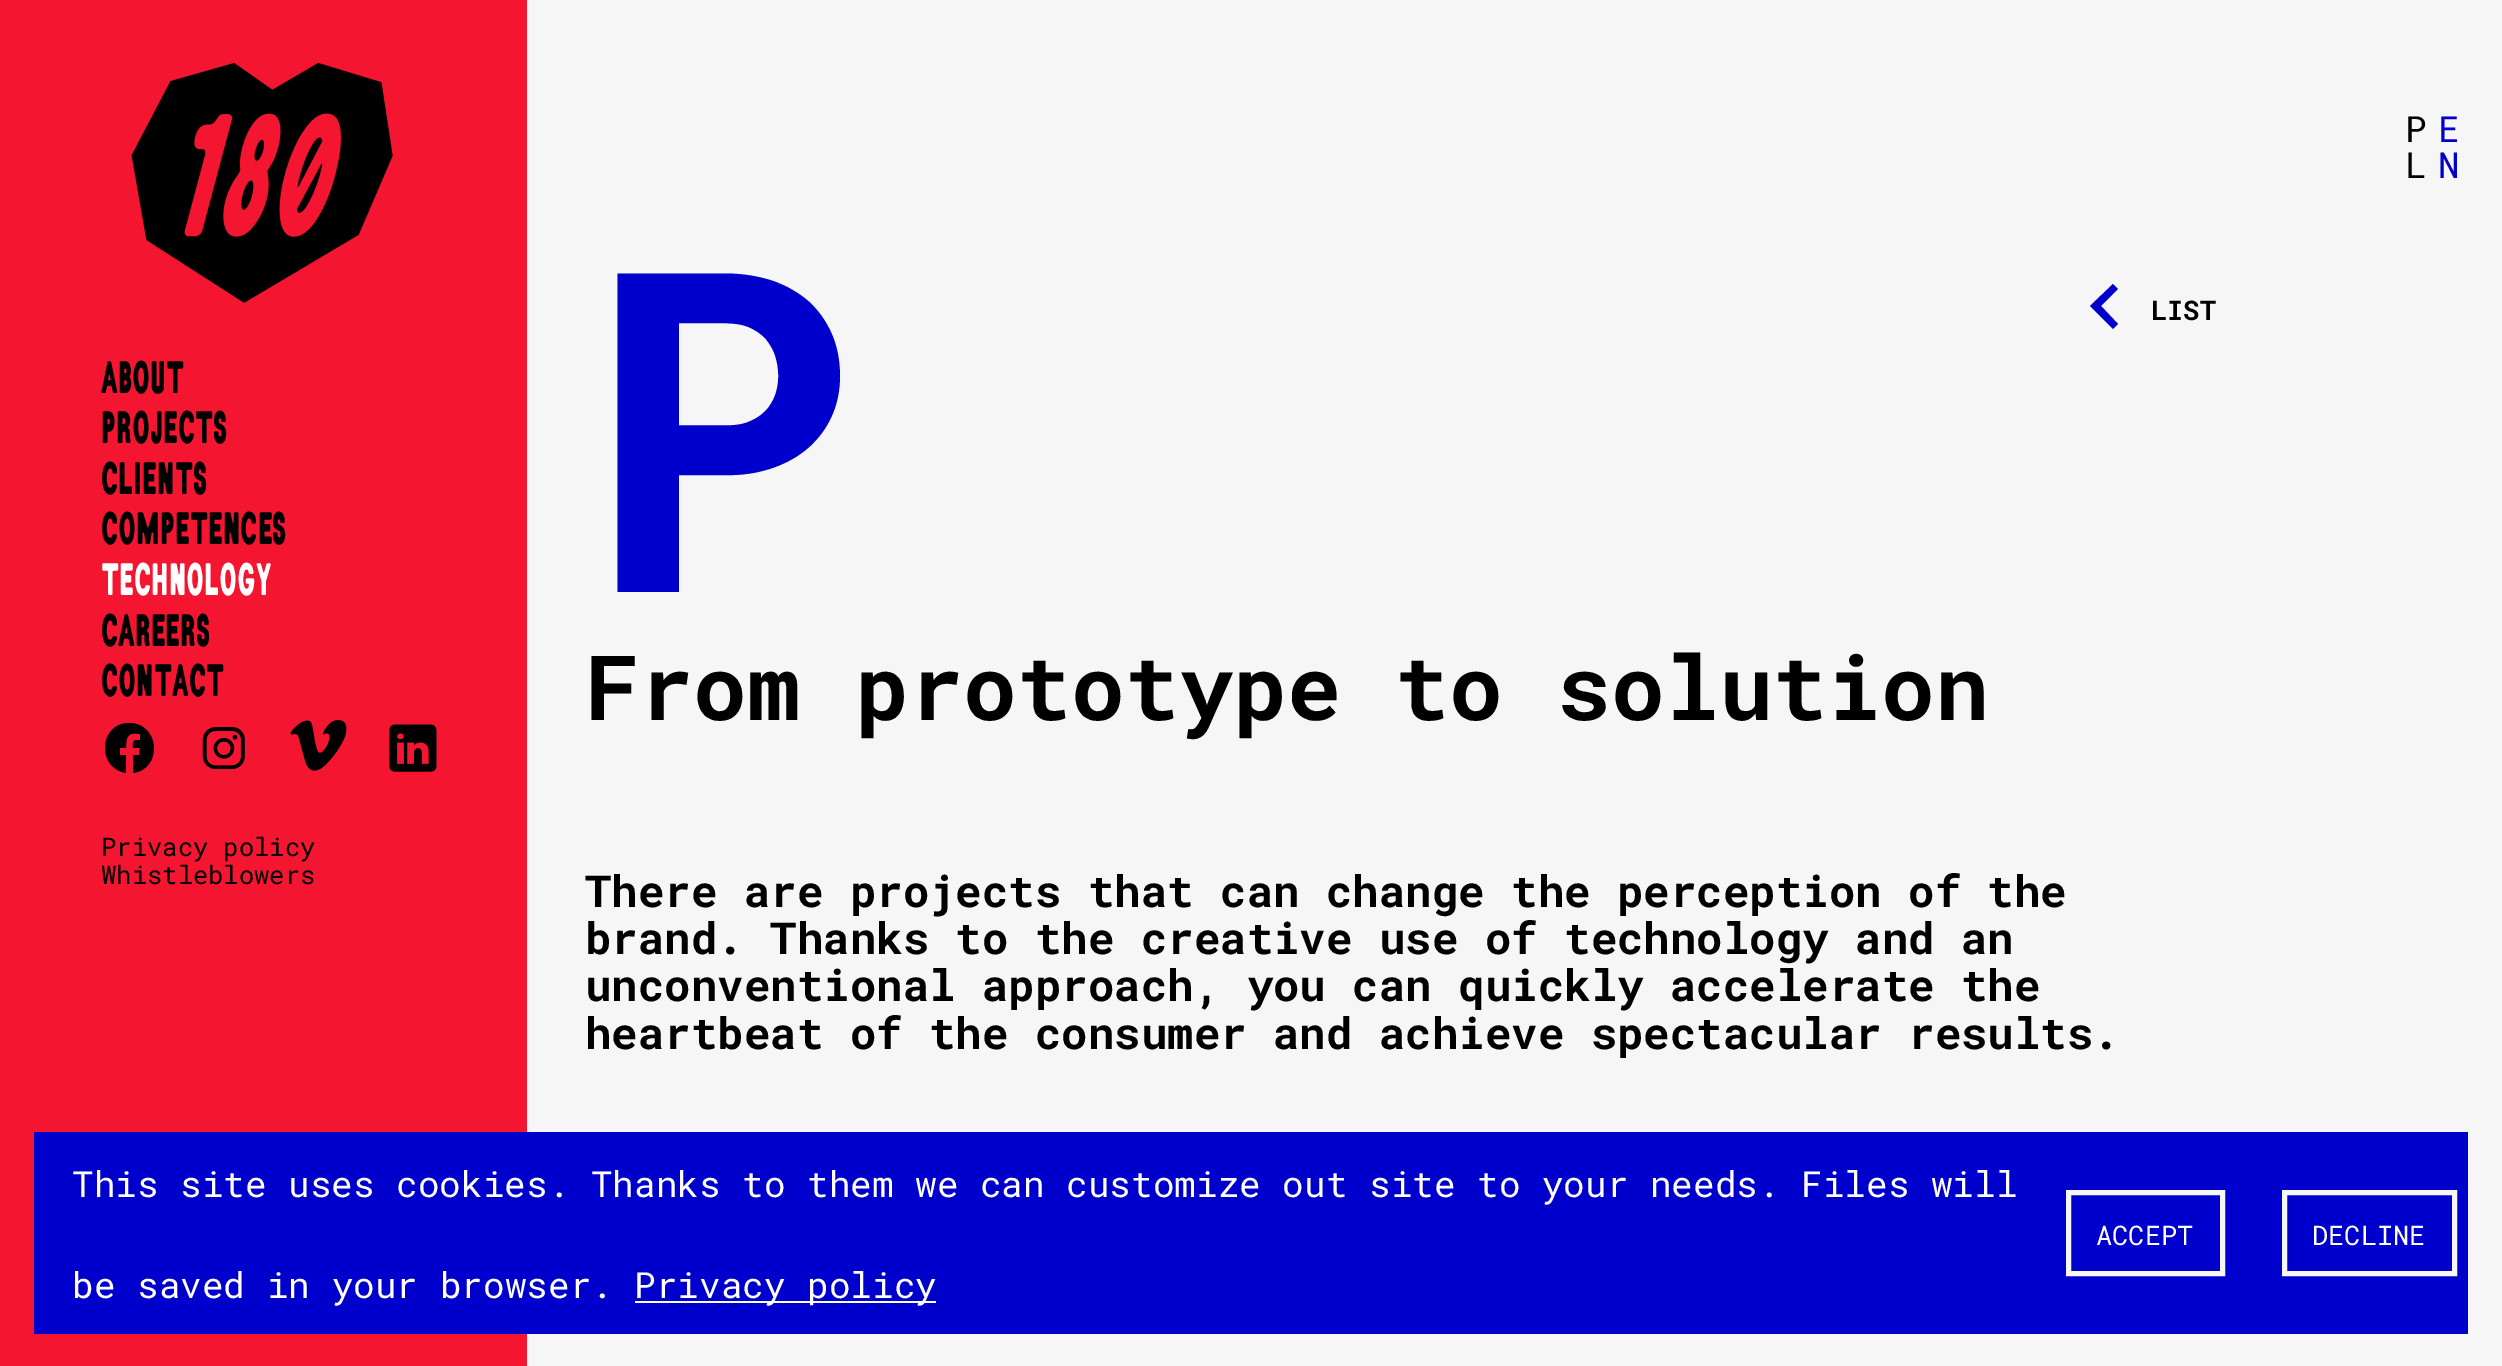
%!PS
<< /PageSize [2502 1366] >> setpagedevice
/rgb { dup -16 bitshift 255 div exch dup -8 bitshift 255 and 255 div exch 255 and 255 div setrgbcolor } def
/font { [ exch dup neg 0 0 3 -1 roll 0 0 ] selectfont } def
/text { moveto show } def
/picture { 5 dict begin { /h /w /y /x /name } { exch def } forall
  gsave x y translate w h scale
  w h 8 [w 0 0 h 0 0] name (r) file false 3 colorimage grestore end } def
0 1366 translate 1 -1 scale
4 setmiterlimit
/s1 { /RobotoMono-Regular 36.05 font 16#000000 rgb } def
/s2 { /RobotoMono-Regular 36.05 font 16#0000CC rgb } def
/s3 { /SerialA-Bold 45.5 font 16#000000 rgb } def
/s4 { /SerialA-Bold 45.5 font 16#FFFFFF rgb } def
/s5 { /RobotoMono-Regular 25.5 font 16#000000 rgb } def
/s6 { /RobotoMono-Bold 450 font 16#0000CC rgb } def
/s7 { /RobotoMono-Bold 90 font 16#000000 rgb } def
/s8 { /RobotoMono-Bold 44.1 font 16#000000 rgb } def
/s9 { /RobotoMono-Bold 27 font 16#000000 rgb } def
/s10 { /RobotoMono-Regular 36.05 font 16#FFFFFF rgb } def
/s11 { /RobotoMono-Regular 27 font 16#FFFFFF rgb } def
16#F6F6F6 rgb
0 0 2502 1366 rectfill
16#F41631 rgb
0 0 527 1366 rectfill
(pic1.raw) 131 63 262 240 picture
s1
(P) 2405 142 text
(L) 2405 178 text
s2
(E) 2438 142 text
(N) 2438 178 text
s3
(ABOUT) 101 393 text
(PROJECTS) 101 443 text
(CLIENTS) 101 494 text
(COMPETENCES) 101 544 text
s4
(TECHNOLOGY) 101 595 text
gsave
101 608 108 49 rectclip
s3
(CAREERS) 101 646 text
grestore
s3
(CONTACT) 101 696 text
129 723 moveto 99 723 96 768 126 773 curveto 126 755 lineto 120 755 lineto 120 748 lineto 126 748 lineto 126 736 128 732 140 734 curveto 140 740 lineto 132 740 133 741 133 748 curveto 140 748 lineto 139 755 lineto 133 755 lineto 133 773 lineto 163 769 160 723 129 723 curveto closepath fill
(pic2.raw) 202 727 43 43 picture
(pic3.raw) 290 720 57 51 picture
(pic4.raw) 389 724 48 48 picture
s5
(Privacy policy) 101 856 text
(Whistleblowers) 101 884 text
s6
(P) 585 592 text
s7
(From prototype to solution) 585 720 text
s8
(There are projects that can change the perception of the) 585 907 text
(brand. Thanks to the creative use of technology and an) 585 954 text
(unconventional approach, you can quickly accelerate the) 585 1001 text
(heartbeat of the consumer and achieve spectacular results.) 585 1049 text
16#0000CC rgb
2113 329 moveto 2118 324 lineto 2101 306 lineto 2118 289 lineto 2113 284 lineto 2090 306 lineto closepath fill
s9
(LIST) 2151 320 text
16#0000CC rgb
34 1132 2434 202 rectfill
/RobotoMono-Regular 36.05 font
16#FFFFFF rgb
72 1197 moveto -0.1 0 32 (This site uses cookies. Thanks to them we can customize out site to your needs. Files will) widthshow
(be saved in your browser.) 72 1298 text
635 1301 301 2 rectfill
(Privacy policy) 634 1298 text
16#F6F6F6 rgb
5 setlinewidth
2068.5 1192.5 154 81 rectstroke
s11
(ACCEPT) 2096 1245 text
16#F6F6F6 rgb
2284.5 1192.5 170 81 rectstroke
s11
(DECLINE) 2312 1245 text
showpage
